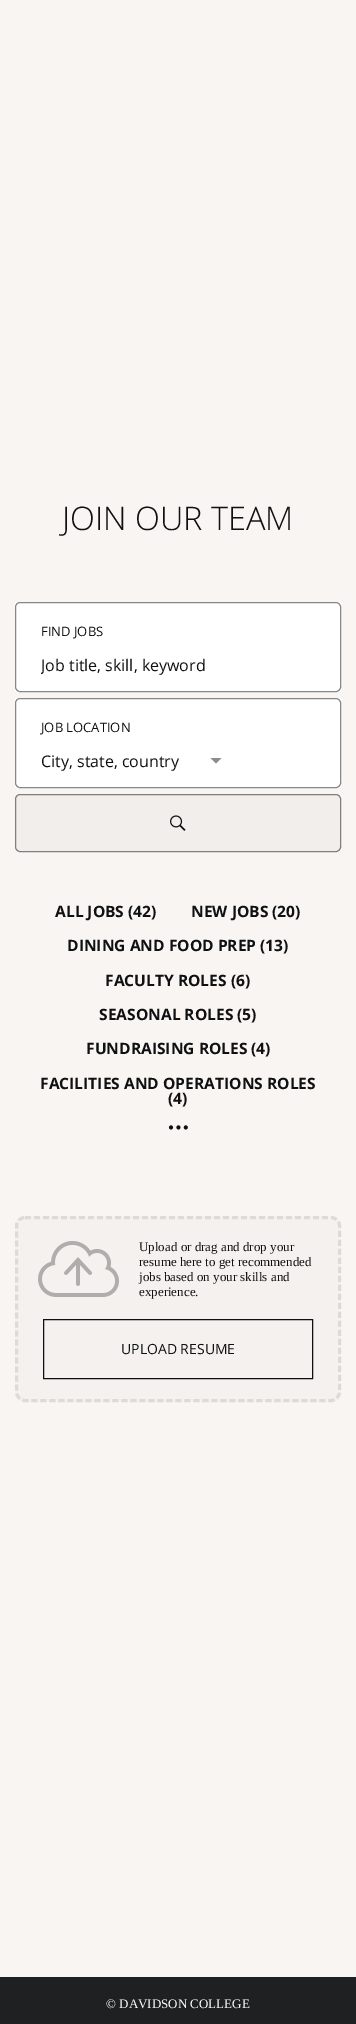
%!PS
<< /PageSize [356 2024] /PageUsesTransparency true >> setpagedevice
/rgb { dup -16 bitshift 255 div exch dup -8 bitshift 255 and 255 div exch 255 and 255 div setrgbcolor } def
/font { [ exch dup neg 0 0 3 -1 roll 0 0 ] selectfont } def
/text { moveto show } def
/alpha { dup .setfillconstantalpha .setstrokeconstantalpha } def
/roundrect { 5 dict begin { /r /h /w /y /x } { exch def } forall
  x r add y moveto x w add y 2 copy h add r arct x w add y h add x 1 index r arct
  x y h add x y r arct x y 2 copy exch w add exch r arct closepath end } def
/picture { 5 dict begin { /h /w /y /x /name } { exch def } forall
  gsave x y translate w h scale
  w h 8 [w 0 0 h 0 0] name (r) file false 3 colorimage grestore end } def
0 .pushpdf14devicefilter
0 2024 translate 1 -1 scale
4 setmiterlimit
/s1 { /OpenSans-Light 32.5 font 16#0F1012 rgb } def
/s2 { /OpenSans-Regular 13 font 16#0F1012 rgb } def
/s3 { /OpenSans-Regular 16 font 16#0F1012 rgb } def
/s4 { /OpenSans-Bold 15.6 font 16#0F1012 rgb } def
/s5 { /LiberationSerif-Regular 13 font 16#0F1012 rgb } def
/s6 { /OpenSans-Regular 14 font 16#0F1012 rgb } def
/s7 { /LiberationSerif-Regular 13 font 16#FFFFFF rgb } def
16#F9F5F2 rgb
0 0 356 2024 rectfill
s1
(JOIN OUR TEAM) 62 530 text
16#FFFFFF rgb
15 602 326 90 rectfill
16#878788 rgb
15.5 602.5 325 89 4.5 roundrect stroke
s2
(FIND JOBS) 41 636 text
gsave
41 654 274 22 rectclip
s3
(Job title, skill, keyword) 41 671 text
grestore
16#FFFFFF rgb
15 698 326 90 rectfill
16#878788 rgb
15.5 698.5 325 89 4.5 roundrect stroke
s2
(JOB LOCATION) 41 732 text
s3
(City, state, country) 41 767 text
16#8A8D8F rgb
216 763.5 moveto 210.5 758 lineto 221.5 758 lineto closepath fill
16#F2EEEB rgb
15 794 326 58 5 roundrect fill
0.5 alpha
16#0E0F11 rgb
15.5 794.5 325 57 4.5 roundrect stroke
1 alpha
(pic1.raw) 170 815 16 16 picture
s4
(ALL JOBS) 55 917 text
(\(42\)) 128 917 text
(NEW JOBS) 191 917 text
(\(20\)) 272 917 text
(DINING AND FOOD PREP) 67 951 text
(\(13\)) 260 951 text
(FACULTY ROLES) 105 986 text
(\(6\)) 231 986 text
(SEASONAL ROLES) 99 1020 text
(\(5\)) 237 1020 text
(FUNDRAISING ROLES) 86 1054 text
(\(4\)) 251 1054 text
(FACILITIES AND OPERATIONS ROLES) 40 1089 text
(\(4\)) 168 1104 text
(pic2.raw) 168 1125 20 5 picture
16#F5F1EE rgb
15 1216 326 186 10 roundrect fill
16#DEDAD8 rgb
3 setlinewidth
[6 3] 0 setdash
25 1217.5 moveto 331 1217.5 lineto 335.5 1217.5 339.5 1221.5 339.5 1226 curveto 339.5 1392 lineto 339.5 1396.5 335.5 1400.5 331 1400.5 curveto 25 1400.5 lineto 20.5 1400.5 16.5 1396.5 16.5 1392 curveto 16.5 1226 lineto 16.5 1221.5 20.5 1217.5 25 1217.5 curveto closepath stroke
(pic3.raw) 38 1241 81 56 picture
s5
(Upload or drag and drop your) 139 1251 text
(resume here to get recommended) 139 1266 text
(jobs based on your skills and) 139 1281 text
(experience.) 139 1296 text
16#0E0F11 rgb
1 setlinewidth
[] 0 setdash
43.5 1319.5 269 59 rectstroke
s6
(UPLOAD RESUME) 121 1354 text
16#1F2021 rgb
0 1977 356 47 rectfill
s7
(© DAVIDSON COLLEGE) 106 2008 text
.poppdf14devicefilter showpage
